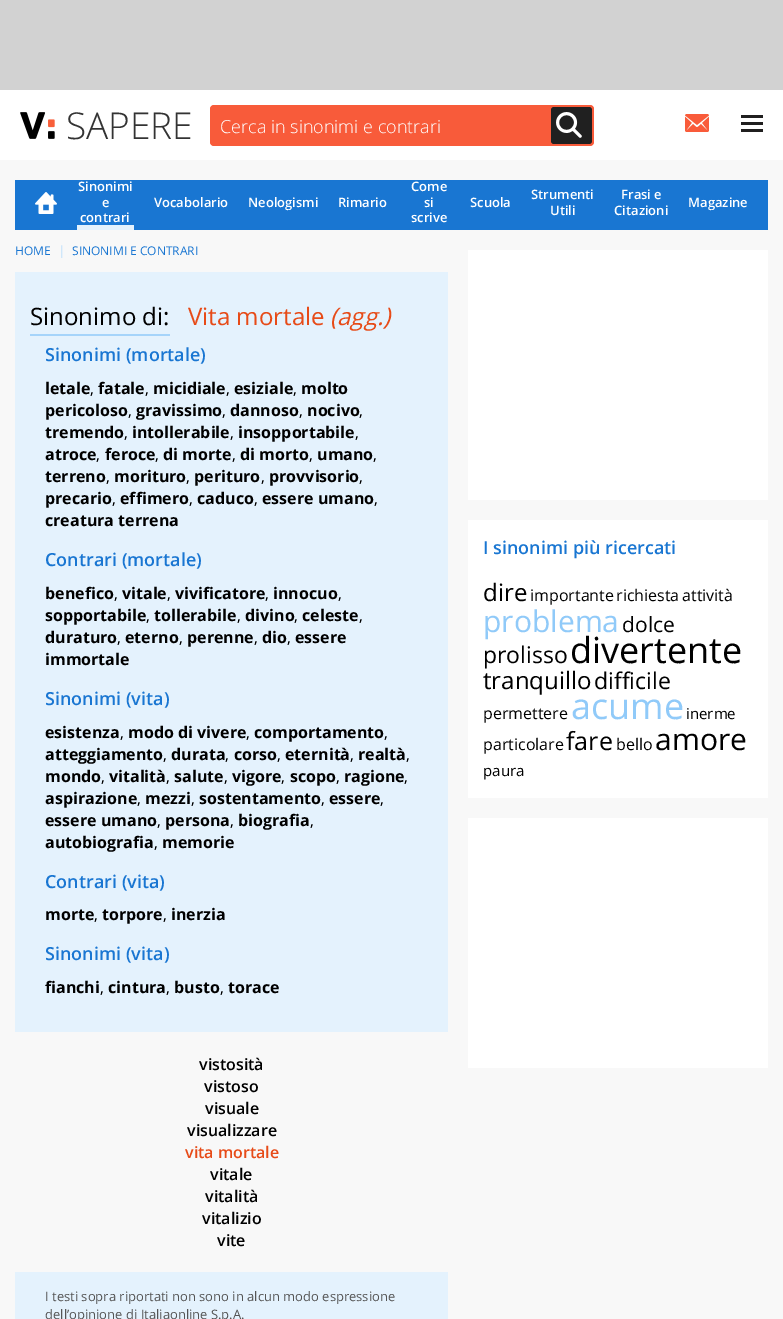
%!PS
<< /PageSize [783 1319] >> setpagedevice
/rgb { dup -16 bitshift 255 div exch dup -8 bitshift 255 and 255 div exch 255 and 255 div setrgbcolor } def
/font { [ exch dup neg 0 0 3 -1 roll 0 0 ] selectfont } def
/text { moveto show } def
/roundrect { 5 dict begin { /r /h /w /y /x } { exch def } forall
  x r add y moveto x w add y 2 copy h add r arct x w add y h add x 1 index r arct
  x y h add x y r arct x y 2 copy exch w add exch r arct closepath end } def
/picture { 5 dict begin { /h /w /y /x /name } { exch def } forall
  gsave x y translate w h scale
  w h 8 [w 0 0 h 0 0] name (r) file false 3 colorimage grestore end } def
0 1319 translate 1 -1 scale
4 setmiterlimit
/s1 { /OpenSans-Light 37 font 16#333333 rgb } def
/s2 { /OpenSans-Light 18 font 16#FFFFFF rgb } def
/s3 { /OpenSans-SemiBold 13 font 16#FFFFFF rgb } def
/s4 { /OpenSans-Regular 12 font 16#1976D2 rgb } def
/s5 { /OpenSans-Regular 14 font 16#C1E1FC rgb } def
/s6 { /OpenSans-Regular 24 font 16#000000 rgb } def
/s7 { /OpenSans-Regular 24 font 16#E74B18 rgb } def
/s8 { /OpenSans-Italic 24 font 16#E74B18 rgb } def
/s9 { /OpenSans-SemiBold 18 font 16#1976D2 rgb } def
/s10 { /OpenSans-Bold 16 font 16#000000 rgb } def
/s11 { /OpenSans-Regular 16 font 16#000000 rgb } def
/s12 { /OpenSans-SemiBold 16 font 16#000000 rgb } def
/s13 { /OpenSans-SemiBold 16 font 16#E74B18 rgb } def
/s14 { /OpenSans-Regular 13 font 16#555555 rgb } def
/s15 { /OpenSans-Regular 30 font 16#90CAF9 rgb } def
/s16 { /OpenSans-Regular 21 font 16#000000 rgb } def
/s17 { /OpenSans-Regular 23 font 16#000000 rgb } def
/s18 { /OpenSans-Regular 36 font 16#000000 rgb } def
/s19 { /OpenSans-Regular 36 font 16#90CAF9 rgb } def
/s20 { /OpenSans-Regular 15 font 16#000000 rgb } def
/s21 { /OpenSans-Regular 25 font 16#000000 rgb } def
/s22 { /OpenSans-Regular 30 font 16#000000 rgb } def
16#D2D2D2 rgb
0 0 783 1319 rectfill
16#FFFFFF rgb
0 90 783 70 rectfill
(pic1.raw) 20 112 35 27 picture
s1
(SAPERE) 66 139 text
16#F85B3A rgb
210 105 384 41 4 roundrect fill
s2
(Cerca in sinonimi e contrari) 220 133 text
16#202020 rgb
551 107 41 37 3 roundrect fill
(pic2.raw) 556 112 26 26 picture
(pic3.raw) 685 114 24 18 picture
(pic4.raw) 741 115 22 17 picture
16#F8F8F8 rgb
0 160 783 1159 rectfill
16#1976D2 rgb
15 180 753 50 rectfill
(pic5.raw) 35 192 22 22 picture
16#E4F2FD rgb
77 225 57 5 rectfill
s3
(Sinonimi) 78 191 text
(e) 102 207 text
(contrari) 80 222 text
(Vocabolario) 154 207 text
(Neologismi) 248 207 text
(Rimario) 338 207 text
(Come) 411 191 text
(si) 424 207 text
(scrive) 411 222 text
(Scuola) 470 207 text
(Strumenti) 531 199 text
(Utili) 550 215 text
(Frasi e) 621 199 text
(Citazioni) 614 215 text
(Magazine) 688 207 text
s4
(HOME) 15 255 text
gsave
51 244 147 14 rectclip
s5
(|) 58 256 text
grestore
(SINONIMI E CONTRARI) 72 255 text
16#E4F2FD rgb
15 272 433 1047 rectfill
s6
(Sinonimo di:) 30 325 text
16#A5D4FA rgb
30 334 140 2 rectfill
s7
(Vita mortale) 188 325 text
s8
(\(agg.\)) 330 325 text
s9
(Sinonimi \(mortale\)) 45 361 text
s10
(letale) 45 394 text
s11
(,) 90 394 text
s10
(fatale) 98 394 text
s11
(,) 145 394 text
s10
(micidiale) 153 394 text
s11
(,) 226 394 text
s10
(esiziale) 234 394 text
s11
(,) 293 394 text
s10
(molto) 301 394 text
(pericoloso) 45 416 text
s11
(,) 128 416 text
s10
(gravissimo) 136 416 text
s11
(,) 222 416 text
s10
(dannoso) 230 416 text
s11
(,) 299 416 text
s10
(nocivo) 307 416 text
s11
(,) 359 416 text
s10
(tremendo) 45 438 text
s11
(,) 124 438 text
s10
(intollerabile) 132 438 text
s11
(,) 230 438 text
s10
(insopportabile) 238 438 text
s11
(,) 355 438 text
s10
(atroce) 45 460 text
s11
(,) 96 460 text
s10
(feroce) 105 460 text
s11
(,) 155 460 text
s10
(di morte) 163 460 text
s11
(,) 232 460 text
s10
(di morto) 240 460 text
s11
(,) 309 460 text
s10
(umano) 317 460 text
s11
(,) 373 460 text
s10
(terreno) 45 482 text
s11
(,) 106 482 text
s10
(morituro) 114 482 text
s11
(,) 186 482 text
s10
(perituro) 194 482 text
s11
(,) 261 482 text
s10
(provvisorio) 269 482 text
s11
(,) 359 482 text
s10
(precario) 45 504 text
s11
(,) 112 504 text
s10
(effimero) 120 504 text
s11
(,) 189 504 text
s10
(caduco) 197 504 text
s11
(,) 254 504 text
s10
(essere umano) 262 504 text
s11
(,) 374 504 text
s10
(creatura terrena) 45 526 text
s9
(Contrari \(mortale\)) 45 566 text
s10
(benefico) 45 599 text
s11
(,) 114 599 text
s10
(vitale) 122 599 text
s11
(,) 167 599 text
s10
(vivificatore) 175 599 text
s11
(,) 265 599 text
s10
(innocuo) 273 599 text
s11
(,) 338 599 text
s10
(sopportabile) 45 621 text
s11
(,) 146 621 text
s10
(tollerabile) 154 621 text
s11
(,) 237 621 text
s10
(divino) 245 621 text
s11
(,) 294 621 text
s10
(celeste) 302 621 text
s11
(,) 359 621 text
s10
(duraturo) 45 643 text
s11
(,) 117 643 text
s10
(eterno) 125 643 text
s11
(,) 179 643 text
s10
(perenne) 187 643 text
s11
(,) 254 643 text
s10
(dio) 262 643 text
s11
(,) 287 643 text
s10
(essere) 295 643 text
(immortale) 45 665 text
s9
(Sinonimi \(vita\)) 45 705 text
s10
(esistenza) 45 738 text
s11
(,) 120 738 text
s10
(modo di vivere) 128 738 text
s11
(,) 246 738 text
s10
(comportamento) 254 738 text
s11
(,) 384 738 text
s10
(atteggiamento) 45 760 text
s11
(,) 163 760 text
s10
(durata) 171 760 text
s11
(,) 225 760 text
s10
(corso) 234 760 text
s11
(,) 277 760 text
s10
(eternità) 285 760 text
s11
(,) 350 760 text
s10
(realtà) 358 760 text
s11
(,) 406 760 text
s10
(mondo) 45 782 text
s11
(,) 101 782 text
s10
(vitalità) 109 782 text
s11
(,) 166 782 text
s10
(salute) 174 782 text
s11
(,) 224 782 text
s10
(vigore) 232 782 text
s11
(,) 281 782 text
s10
(scopo) 290 782 text
s11
(,) 336 782 text
s10
(ragione) 344 782 text
s11
(,) 404 782 text
s10
(aspirazione) 45 804 text
s11
(,) 137 804 text
s10
(mezzi) 145 804 text
s11
(,) 191 804 text
s10
(sostentamento) 199 804 text
s11
(,) 321 804 text
s10
(essere) 329 804 text
s11
(,) 380 804 text
s10
(essere umano) 45 826 text
s11
(,) 157 826 text
s10
(persona) 165 826 text
s11
(,) 230 826 text
s10
(biografia) 238 826 text
s11
(,) 310 826 text
s10
(autobiografia) 45 848 text
s11
(,) 154 848 text
s10
(memorie) 162 848 text
s9
(Contrari \(vita\)) 45 888 text
s10
(morte) 45 920 text
s11
(,) 94 920 text
s10
(torpore) 102 920 text
s11
(,) 163 920 text
s10
(inerzia) 171 920 text
s9
(Sinonimi \(vita\)) 45 960 text
s10
(fianchi) 45 993 text
s11
(,) 100 993 text
s10
(cintura) 108 993 text
s11
(,) 166 993 text
s10
(busto) 174 993 text
s11
(,) 220 993 text
s10
(torace) 228 993 text
16#F8F8F8 rgb
15 1032 433 240 rectfill
s12
(vistosità) 199 1070 text
(vistoso) 204 1092 text
(visuale) 205 1114 text
(visualizzare) 187 1136 text
s13
(vita mortale) 185 1158 text
s12
(vitale) 210 1180 text
(vitalità) 205 1202 text
(vitalizio) 202 1224 text
(vite) 217 1246 text
s14
(I testi sopra riportati non sono in alcun modo espressione) 45 1301 text
(dell’opinione di Italiaonline S.p.A.) 45 1319 text
16#FFFFFF rgb
468 250 300 250 rectfill
468 520 300 278 rectfill
s9
(I sinonimi più ricercati) 483 554 text
s6
(dire) 483 601 text
s11
(importante) 530 601 text
(richiesta) 616 601 text
(attività) 682 601 text
s15
(problema) 483 632 text
s16
(dolce) 622 632 text
s17
(prolisso) 483 663 text
s18
(divertente) 570 663 text
s6
(tranquillo) 483 689 text
s17
(difficile) 594 689 text
s11
(permettere) 483 719 text
s19
(acume) 571 719 text
s20
(inerme) 686 719 text
s11
(particolare) 483 750 text
s21
(fare) 566 750 text
s11
(bello) 616 750 text
s22
(amore) 655 750 text
s20
(paura) 483 776 text
16#FFFFFF rgb
468 818 300 250 rectfill
showpage
